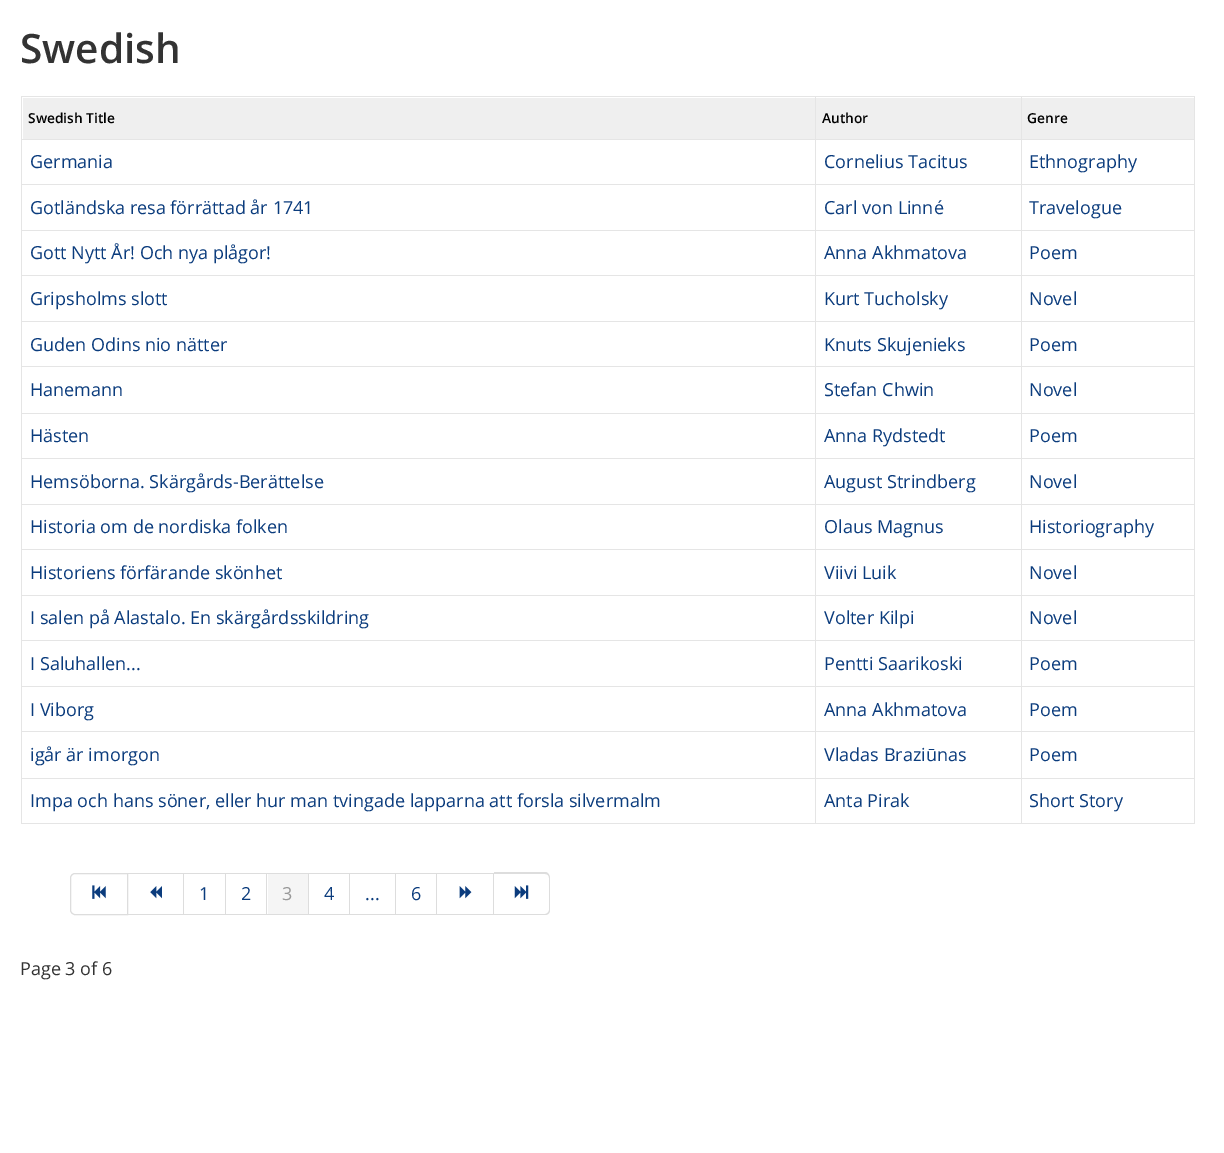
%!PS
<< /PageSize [1224 1153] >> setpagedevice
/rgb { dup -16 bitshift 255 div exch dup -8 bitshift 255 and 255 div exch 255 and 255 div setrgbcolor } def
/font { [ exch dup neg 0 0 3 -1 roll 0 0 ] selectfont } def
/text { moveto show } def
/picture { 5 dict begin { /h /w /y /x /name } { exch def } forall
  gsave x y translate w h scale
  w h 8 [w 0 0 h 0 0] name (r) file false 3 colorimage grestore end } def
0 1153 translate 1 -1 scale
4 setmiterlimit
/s1 { /OpenSans-SemiBold 40.5 font 16#333333 rgb } def
/s2 { /OpenSans-SemiBold 13.75 font 16#000000 rgb } def
/s3 { /OpenSans-Regular 18 font 16#0B3C7D rgb } def
/s4 { /OpenSans-Regular 18 font 16#999999 rgb } def
/s5 { /OpenSans-Regular 18 font 16#333333 rgb } def
16#FFFFFF rgb
0 0 1224 1153 rectfill
s1
(Swedish) 20 63 text
16#E5E5E5 rgb
21 96 1174 1 rectfill
1194 96 1 728 rectfill
21 823 1174 1 rectfill
21 96 1 728 rectfill
16#EFEFEF rgb
23 98 792 41 rectfill
16#E5E5E5 rgb
1021 778 1 46 rectfill
1021 778 174 1 rectfill
1021 731 1 48 rectfill
1021 731 174 1 rectfill
1021 686 1 47 rectfill
1021 686 174 1 rectfill
1021 640 1 48 rectfill
1021 640 174 1 rectfill
1021 595 1 46 rectfill
1021 595 174 1 rectfill
1021 549 1 47 rectfill
1021 549 174 1 rectfill
1021 504 1 46 rectfill
1021 504 174 1 rectfill
1021 458 1 47 rectfill
1021 458 174 1 rectfill
1021 413 1 46 rectfill
1021 413 174 1 rectfill
1021 366 1 48 rectfill
1021 366 174 1 rectfill
1021 321 1 47 rectfill
1021 321 174 1 rectfill
1021 275 1 48 rectfill
1021 275 174 1 rectfill
1021 230 1 46 rectfill
1021 230 174 1 rectfill
1021 184 1 47 rectfill
1021 184 174 1 rectfill
1021 139 1 46 rectfill
1021 139 174 1 rectfill
1021 96 1 44 rectfill
815 778 1 46 rectfill
815 778 208 1 rectfill
815 731 1 48 rectfill
815 731 208 1 rectfill
815 686 1 47 rectfill
815 686 208 1 rectfill
815 640 1 48 rectfill
815 640 208 1 rectfill
815 595 1 46 rectfill
815 595 208 1 rectfill
815 549 1 47 rectfill
815 549 208 1 rectfill
815 504 1 46 rectfill
815 504 208 1 rectfill
815 458 1 47 rectfill
815 458 208 1 rectfill
815 413 1 46 rectfill
815 413 208 1 rectfill
815 366 1 48 rectfill
815 366 208 1 rectfill
815 321 1 47 rectfill
815 321 208 1 rectfill
815 275 1 48 rectfill
815 275 208 1 rectfill
815 230 1 46 rectfill
815 230 208 1 rectfill
815 184 1 47 rectfill
815 184 208 1 rectfill
815 139 1 46 rectfill
815 139 208 1 rectfill
815 96 1 44 rectfill
21 139 795 1 rectfill
s2
(Swedish Title) 28 123 text
16#EFEFEF rgb
816 98 205 41 rectfill
s2
(Author) 822 123 text
16#EFEFEF rgb
1022 98 172 41 rectfill
s2
(Genre) 1027 123 text
16#E5E5E5 rgb
21 184 795 1 rectfill
s3
(Germania) 30 168 text
(Cornelius Tacitus) 824 168 text
(Ethnography) 1029 168 text
16#E5E5E5 rgb
21 230 795 1 rectfill
s3
(Gotländska resa förrättad år 1741) 30 214 text
(Carl von Linné) 824 214 text
(Travelogue) 1029 214 text
16#E5E5E5 rgb
21 275 795 1 rectfill
s3
(Gott Nytt År! Och nya plågor!) 30 259 text
(Anna Akhmatova) 824 259 text
(Poem) 1029 259 text
16#E5E5E5 rgb
21 321 795 1 rectfill
s3
(Gripsholms slott) 30 305 text
(Kurt Tucholsky) 824 305 text
(Novel) 1029 305 text
16#E5E5E5 rgb
21 366 795 1 rectfill
s3
(Guden Odins nio nätter) 30 351 text
(Knuts Skujenieks) 824 351 text
(Poem) 1029 351 text
16#E5E5E5 rgb
21 413 795 1 rectfill
s3
(Hanemann) 30 396 text
(Stefan Chwin) 824 396 text
(Novel) 1029 396 text
16#E5E5E5 rgb
21 458 795 1 rectfill
s3
(Hästen) 30 442 text
(Anna Rydstedt) 824 442 text
(Poem) 1029 442 text
16#E5E5E5 rgb
21 504 795 1 rectfill
s3
(Hemsöborna. Skärgårds-Berättelse) 30 488 text
(August Strindberg) 824 488 text
(Novel) 1029 488 text
16#E5E5E5 rgb
21 549 795 1 rectfill
s3
(Historia om de nordiska folken) 30 533 text
(Olaus Magnus) 824 533 text
(Historiography) 1029 533 text
16#E5E5E5 rgb
21 595 795 1 rectfill
s3
(Historiens förfärande skönhet) 30 579 text
(Viivi Luik) 824 579 text
(Novel) 1029 579 text
16#E5E5E5 rgb
21 640 795 1 rectfill
s3
(I salen på Alastalo. En skärgårdsskildring) 30 624 text
(Volter Kilpi) 824 624 text
(Novel) 1029 624 text
16#E5E5E5 rgb
21 686 795 1 rectfill
s3
(I Saluhallen...) 30 670 text
(Pentti Saarikoski) 824 670 text
(Poem) 1029 670 text
16#E5E5E5 rgb
21 731 795 1 rectfill
s3
(I Viborg) 30 716 text
(Anna Akhmatova) 824 716 text
(Poem) 1029 716 text
16#E5E5E5 rgb
21 778 795 1 rectfill
s3
(igår är imorgon) 30 761 text
(Vladas Braziūnas) 824 761 text
(Poem) 1029 761 text
(Impa och hans söner, eller hur man tvingade lapparna att forsla silvermalm) 30 807 text
(Anta Pirak) 824 807 text
(Short Story) 1029 807 text
16#DDDDDD rgb
75 873.5 moveto 127.5 873.5 lineto 127.5 914.5 lineto 75 914.5 lineto 72.5 914.5 70.5 912.5 70.5 910 curveto 70.5 878 lineto 70.5 875.5 72.5 873.5 75 873.5 curveto closepath stroke
(pic1.raw) 92 885 14 14 picture
128 873 366 1 rectfill
183 873 1 42 rectfill
128 914 56 1 rectfill
(pic2.raw) 150 886 12 13 picture
494 872 moveto 545 872 lineto 548 872 550 875 550 878 curveto 550 910 lineto 550 913 548 915 545 915 curveto 494 915 lineto closepath 494 874 moveto 545 874 lineto 547 874 549 875 549 878 curveto 549 910 lineto 549 912 547 914 545 914 curveto 494 914 lineto closepath eofill
(pic3.raw) 514 885 15 14 picture
225 873 1 42 rectfill
184 914 42 1 rectfill
s3
(1) 199 900 text
16#DDDDDD rgb
266 873 1 42 rectfill
226 914 42 1 rectfill
s3
(2) 241 900 text
16#F5F5F5 rgb
268 874 40 40 rectfill
16#DDDDDD rgb
308 873 1 42 rectfill
268 914 41 1 rectfill
s4
(3) 282 900 text
16#DDDDDD rgb
349 873 1 42 rectfill
309 914 41 1 rectfill
s3
(4) 324 900 text
16#DDDDDD rgb
395 873 1 42 rectfill
350 914 46 1 rectfill
s3
(...) 365 900 text
16#DDDDDD rgb
436 873 1 42 rectfill
396 914 42 1 rectfill
s3
(6) 411 900 text
16#DDDDDD rgb
493 873 1 42 rectfill
438 914 56 1 rectfill
(pic4.raw) 459 886 13 13 picture
s5
(Page 3 of 6) 20 975 text
showpage
